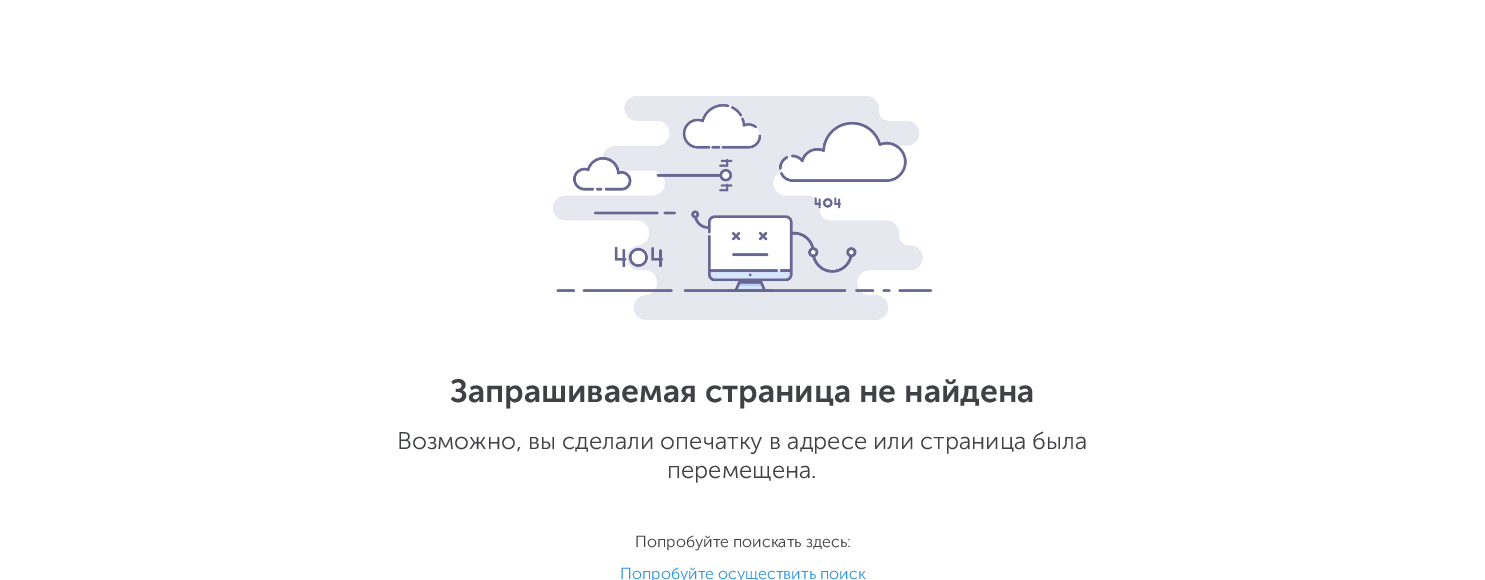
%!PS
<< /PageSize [1485 580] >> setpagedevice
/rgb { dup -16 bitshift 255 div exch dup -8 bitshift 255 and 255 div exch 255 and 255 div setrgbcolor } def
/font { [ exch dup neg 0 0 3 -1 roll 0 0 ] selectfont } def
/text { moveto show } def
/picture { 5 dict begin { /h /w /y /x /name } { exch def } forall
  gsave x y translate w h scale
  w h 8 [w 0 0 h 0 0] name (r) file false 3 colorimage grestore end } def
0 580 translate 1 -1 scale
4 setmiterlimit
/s1 { /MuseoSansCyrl-SemiBold 32 font 16#404144 rgb } def
/s2 { /MuseoSansCyrl-Light 24 font 16#404144 rgb } def
/s3 { /MuseoSansCyrl-Light 16 font 16#404144 rgb } def
/s4 { /MuseoSansCyrl-Light 16 font 16#3095DD rgb } def
16#FFFFFF rgb
0 0 1485 580 rectfill
(pic1.raw) 553 96 379 224 picture
s1
(Запрашиваемая страница не найдена) 450 402 text
s2
(Возможно, вы сделали опечатку в адресе или страница была) 397 449 text
(перемещена.) 667 478 text
s3
(Попробуйте поискать здесь:) 635 547 text
s4
(Попробуйте осуществить поиск) 620 579 text
showpage
